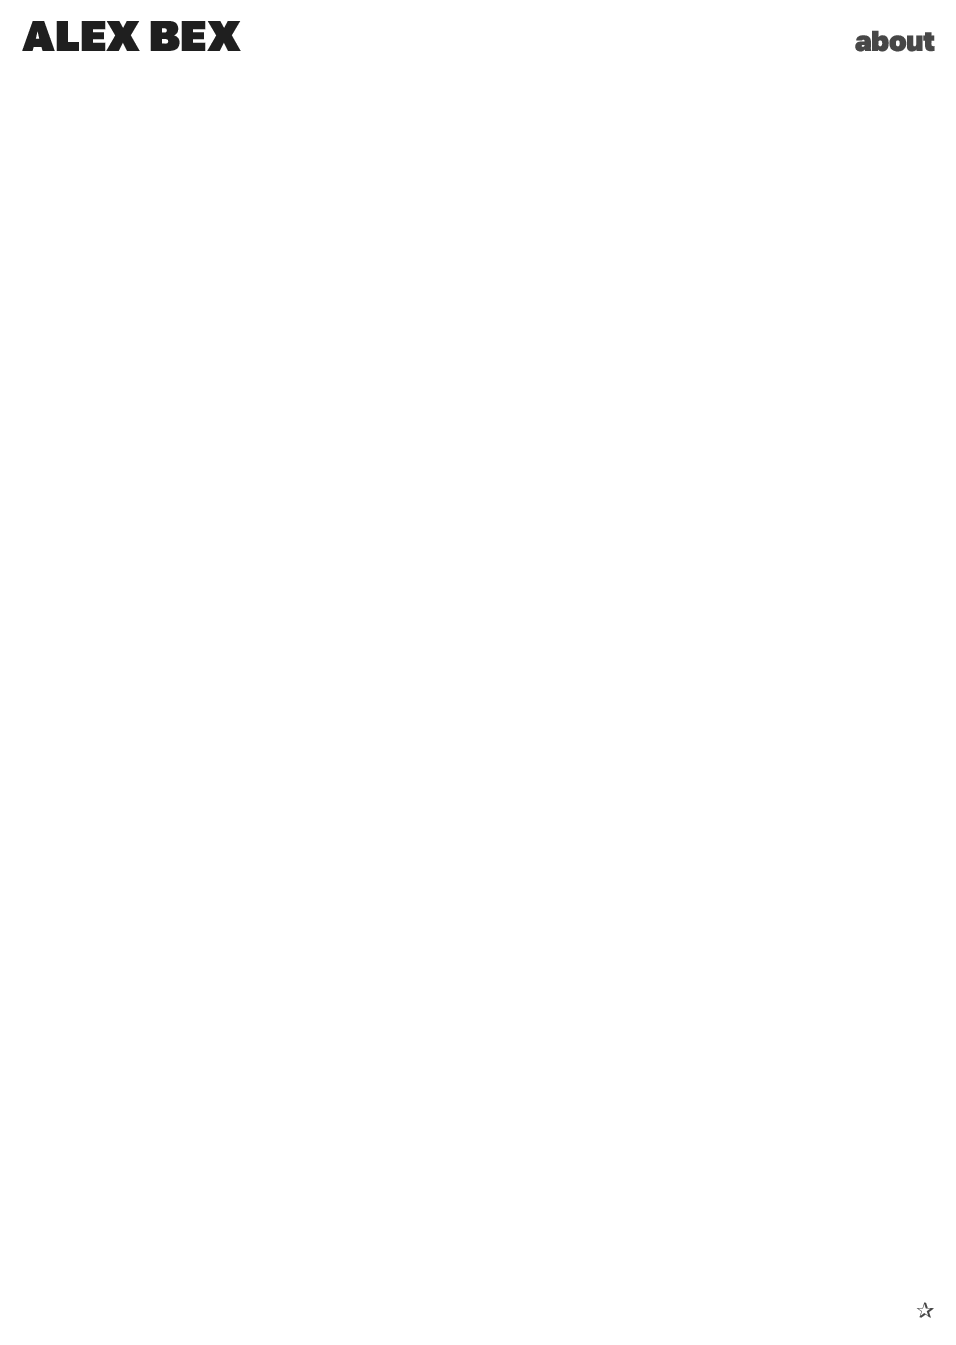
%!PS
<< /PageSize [956 1345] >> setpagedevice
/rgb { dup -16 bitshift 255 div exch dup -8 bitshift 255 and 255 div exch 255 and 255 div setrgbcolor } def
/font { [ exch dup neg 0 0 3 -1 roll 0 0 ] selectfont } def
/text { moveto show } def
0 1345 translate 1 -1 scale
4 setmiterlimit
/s1 { /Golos-Black 43 font 16#1F1F1F rgb } def
16#FFFFFF rgb
0 0 956 1345 rectfill
s1
(ALEX BEX) 22 51 text
/Golos-Black 29 font
16#474747 rgb
855 51 moveto -0.5 0 (about) ashow
/DejaVuSans-Regular 22 font
916 1318 moveto 1 0 (✰) ashow
showpage
